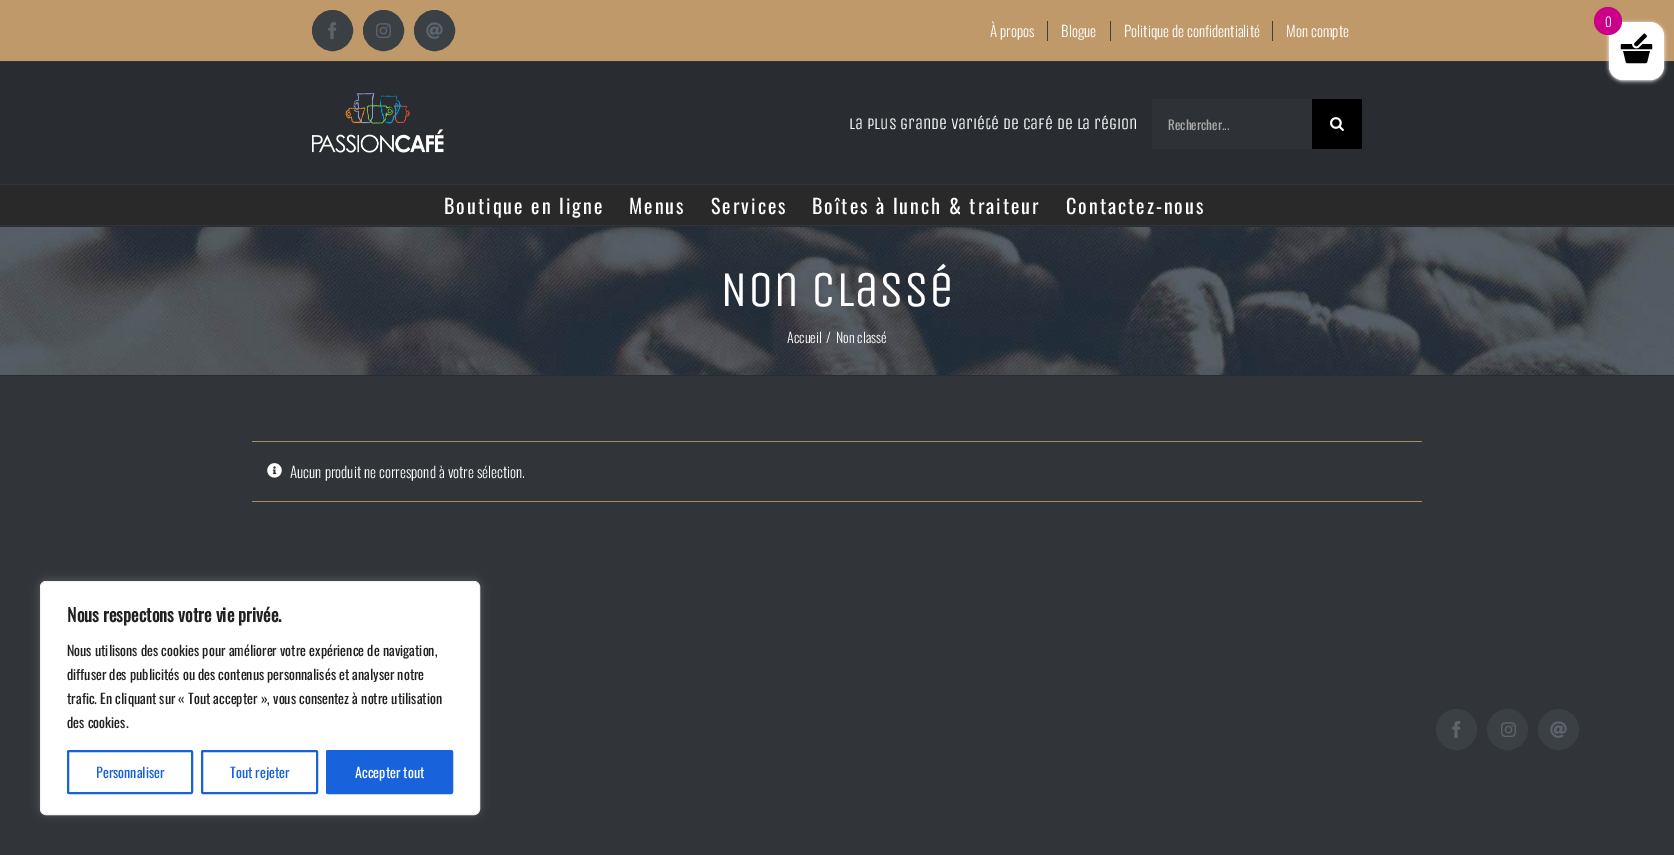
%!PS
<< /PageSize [1674 855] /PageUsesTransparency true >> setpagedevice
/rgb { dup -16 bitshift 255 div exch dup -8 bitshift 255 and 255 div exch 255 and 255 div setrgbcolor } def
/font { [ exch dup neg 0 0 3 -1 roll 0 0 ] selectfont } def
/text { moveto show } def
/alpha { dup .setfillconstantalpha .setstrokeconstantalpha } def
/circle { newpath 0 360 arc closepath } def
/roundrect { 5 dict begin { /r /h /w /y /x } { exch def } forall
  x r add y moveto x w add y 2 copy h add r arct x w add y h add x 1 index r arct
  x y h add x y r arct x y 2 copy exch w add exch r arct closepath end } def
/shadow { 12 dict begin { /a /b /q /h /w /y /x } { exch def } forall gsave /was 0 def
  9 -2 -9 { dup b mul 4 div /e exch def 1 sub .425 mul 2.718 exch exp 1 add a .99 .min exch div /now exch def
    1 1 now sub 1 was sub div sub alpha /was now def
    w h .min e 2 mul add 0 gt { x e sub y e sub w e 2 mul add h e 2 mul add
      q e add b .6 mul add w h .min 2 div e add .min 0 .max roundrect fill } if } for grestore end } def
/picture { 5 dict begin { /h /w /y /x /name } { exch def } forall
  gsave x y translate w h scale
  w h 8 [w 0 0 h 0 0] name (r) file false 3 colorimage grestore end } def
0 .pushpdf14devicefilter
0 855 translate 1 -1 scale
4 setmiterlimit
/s1 { /Oswald-Light 15 font 16#FFFFFF rgb } def
/s2 { /UnicaOne-Regular 16 font 16#FFFFFF rgb } def
/s3 { /Oswald-Regular 13 font 16#AAA9A9 rgb } def
/s4 { /UnicaOne-Regular 50 font 16#FFFFFF rgb } def
/s5 { /Oswald-Light 14 font 16#FFFFFF rgb } def
/s6 { /Oswald-Light 13 font 16#FFFFFF rgb } def
/s7 { /Oswald-Bold 18 font 16#212121 rgb } def
/s8 { /Oswald-Regular 14 font 16#212121 rgb } def
/s9 { /Oswald-Regular 14 font 16#1863DC rgb } def
/s10 { /Oswald-Regular 14 font 16#FFFFFF rgb } def
16#313539 rgb
0 0 1674 855 rectfill
16#C0996B rgb
0 0 1674 61 rectfill
16#3B4045 rgb
332.5 30.5 20 circle gsave fill grestore
stroke
(pic1.raw) 328 22 9 18 picture
383.5 30.5 20 circle gsave fill grestore
stroke
(pic2.raw) 376 23 15 15 picture
434.5 30.5 20 circle gsave fill grestore
stroke
(pic3.raw) 426 22 17 17 picture
s1
(À propos) 990 37 text
16#3E3E3E rgb
1047 21 1 20 rectfill
s1
(Blogue) 1061 37 text
16#3E3E3E rgb
1110 21 1 20 rectfill
s1
(Politique de confidentialité) 1124 37 text
16#3E3E3E rgb
1272 21 1 20 rectfill
s1
(Mon compte) 1286 37 text
16#292C30 rgb
0 62 1674 122 rectfill
(pic4.raw) 312 93 132 60 picture
s2
(La plus grande variété de café de la région) 849 129 text
16#2E3135 rgb
1152 99 160 50 rectfill
s3
(Rechercher...) 1168 130 text
16#000000 rgb
1312 99 50 50 rectfill
(pic5.raw) 1330 117 14 14 picture
16#29292A rgb
0 185 1674 40 rectfill
/Oswald-Regular 20 font
16#FFFFFF rgb
444 214 moveto 2 0 (Boutique en ligne) ashow
629 214 moveto 2 0 (Menus) ashow
711 214 moveto 2 0 (Services) ashow
812 214 moveto 2 0 (Boîtes à lunch & traiteur) ashow
1066 214 moveto 2 0 (Contactez-nous) ashow
(pic6.raw) 0 227 1674 148 picture
16#292C30 rgb
0 226 1674 1 rectfill
0 375 1674 1 rectfill
s4
(Non classé) 720 306 text
s5
(Accueil) 787 343 text
(/) 826 343 text
(Non classé) 836 343 text
16#AE895D rgb
252 441 1170 1 rectfill
252 501 1170 1 rectfill
(pic7.raw) 267 463 15 15 picture
s1
(Aucun produit ne correspond à votre sélection.) 290 478 text
16#3B4045 rgb
1456.5 729.5 20 circle gsave fill grestore
stroke
(pic1.raw) 1452 721 9 18 picture
1507.5 729.5 20 circle gsave fill grestore
stroke
(pic2.raw) 1501 722 15 15 picture
1558.5 729.5 20 circle gsave fill grestore
stroke
(pic3.raw) 1550 721 17 17 picture
16#FFFFFF rgb
1609 23 55 58 14 2 1 shadow
1609 22 55 58 14 roundrect fill
(pic8.raw) 1620 33 33 31 picture
16#CC0086 rgb
1608 21 14 circle fill
s6
(0) 1605 27 text
16#ACABAB rgb
40 580 440 234 6 5 0.3 shadow
16#FFFFFF rgb
40.5 581.5 439 233 5.5 roundrect gsave fill grestore
16#F4F4F4 rgb
stroke
s7
(Nous respectons votre vie privée.) 67 622 text
s8
(Nous utilisons des cookies pour améliorer votre expérience de navigation,) 67 656 text
(diffuser des publicités ou des contenus personnalisés et analyser notre) 67 680 text
(trafic. En cliquant sur « Tout accepter », vous consentez à notre utilisation) 67 704 text
(des cookies.) 67 728 text
16#1863DC rgb
2 setlinewidth
68 751 124 42 1 roundrect stroke
(Personnaliser) 96 778 text
202 751 115 42 1 roundrect stroke
(Tout rejeter) 230 778 text
327 751 125 42 1 roundrect gsave fill grestore
stroke
s10
(Accepter tout) 355 778 text
.poppdf14devicefilter showpage
